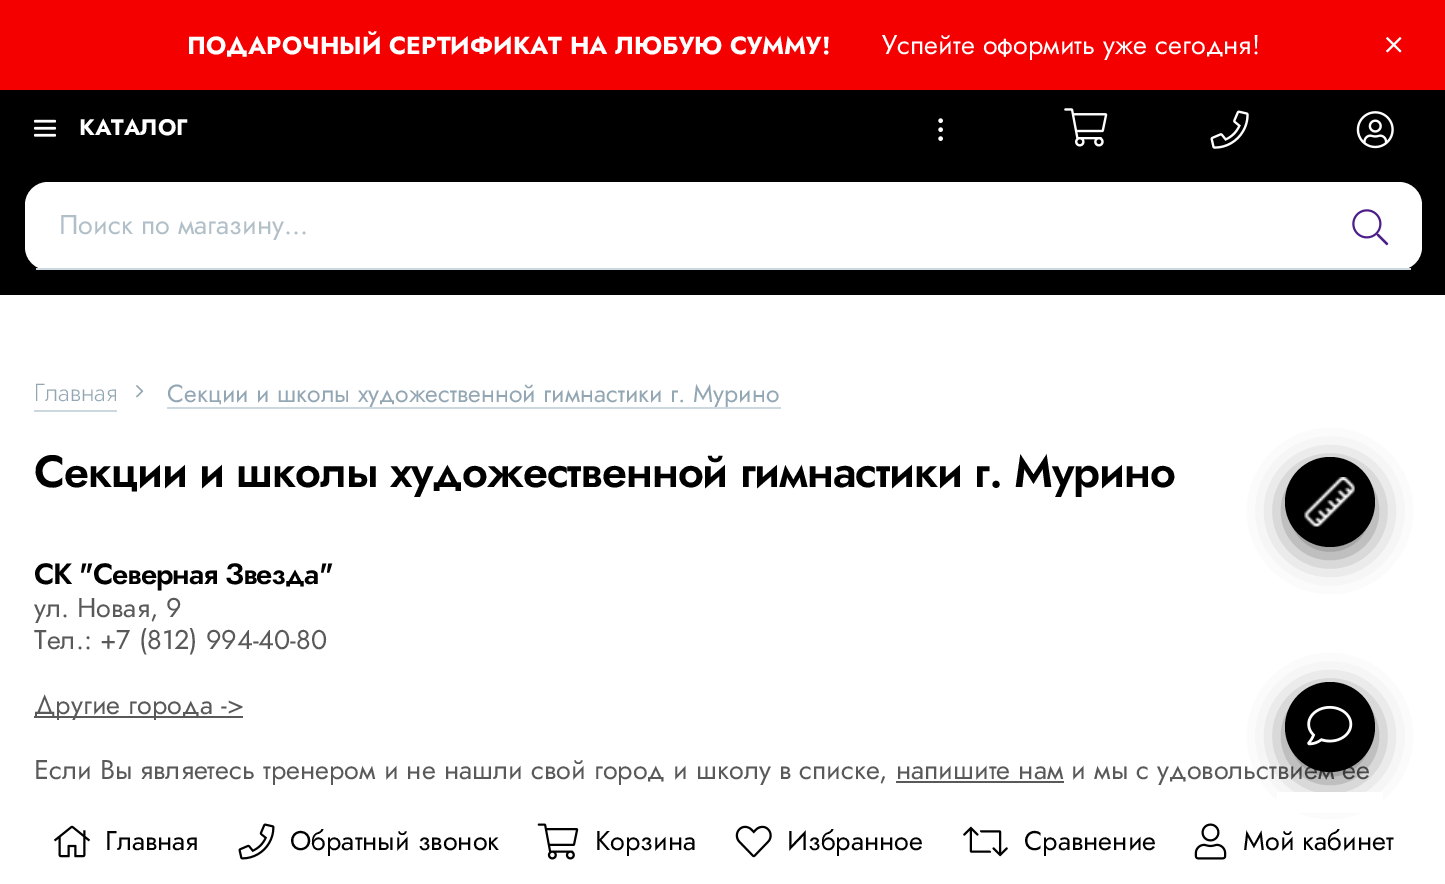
%!PS
<< /PageSize [1445 884] /PageUsesTransparency true >> setpagedevice
/rgb { dup -16 bitshift 255 div exch dup -8 bitshift 255 and 255 div exch 255 and 255 div setrgbcolor } def
/font { [ exch dup neg 0 0 3 -1 roll 0 0 ] selectfont } def
/text { moveto show } def
/alpha { dup .setfillconstantalpha .setstrokeconstantalpha } def
/circle { newpath 0 360 arc closepath } def
/roundrect { 5 dict begin { /r /h /w /y /x } { exch def } forall
  x r add y moveto x w add y 2 copy h add r arct x w add y h add x 1 index r arct
  x y h add x y r arct x y 2 copy exch w add exch r arct closepath end } def
/shadow { 12 dict begin { /a /b /q /h /w /y /x } { exch def } forall gsave /was 0 def
  9 -2 -9 { dup b mul 4 div /e exch def 1 sub .425 mul 2.718 exch exp 1 add a .99 .min exch div /now exch def
    1 1 now sub 1 was sub div sub alpha /was now def
    w h .min e 2 mul add 0 gt { x e sub y e sub w e 2 mul add h e 2 mul add
      q e add b .6 mul add w h .min 2 div e add .min 0 .max roundrect fill } if } for grestore end } def
/picture { 5 dict begin { /h /w /y /x /name } { exch def } forall
  gsave x y translate w h scale
  w h 8 [w 0 0 h 0 0] name (r) file false 3 colorimage grestore end } def
0 .pushpdf14devicefilter
0 884 translate 1 -1 scale
4 setmiterlimit
/s1 { /Jost-Bold 24.75 font 16#FFFFFF rgb } def
/s2 { /Jost-Regular 27 font 16#FFFFFF rgb } def
/s3 { /Jost-Bold 22.5 font 16#FFFFFF rgb } def
/s4 { /Jost-Regular 27 font 16#B1BFC8 rgb } def
/s5 { /Jost-Light 24.75 font 16#93A6B3 rgb } def
/s6 { /Jost-Regular 24.75 font 16#93A6B3 rgb } def
/s7 { /Jost-Regular 27 font 16#595959 rgb } def
/s8 { /Jost-Regular 27 font 16#000000 rgb } def
16#FFFFFF rgb
0 0 1445 884 rectfill
16#F40000 rgb
0 0 1445 90 rectfill
s1
(ПОДАРОЧНЫЙ СЕРТИФИКАТ НА ЛЮБУЮ СУММУ!) 187 54 text
s2
(Успейте оформить уже сегодня!) 882 54 text
(pic1.raw) 1386 37 16 16 picture
16#000000 rgb
0 90 1445 205 rectfill
(pic2.raw) 938 118 5 23 picture
(pic3.raw) 1064 108 44 39 picture
(pic4.raw) 1210 110 39 39 picture
(pic5.raw) 1356 111 38 38 picture
(pic6.raw) 34 119 22 18 picture
s3
(КАТАЛОГ) 79 135 text
25 182 1397 88 23 roundrect fill
16#CCD8DF rgb
36 268 1375 2 rectfill
s4
(Поиск по магазину...) 59 234 text
(pic7.raw) 1352 209 37 37 picture
s5
(Главная) 34 401 text
16#CCD8DF rgb
34 410 83 2 rectfill
(pic8.raw) 136 385 8 13 picture
167 407 614 2 rectfill
gsave
167 380 614 27 rectclip
s6
(Секции и школы художественной гимнастики г. Мурино) 167 402 text
grestore
16#000000 rgb
1285 466 90 90 45 17 0.5 shadow
1330 502 45 circle fill
(pic9.raw) 1304 477 51 50 picture
/Jost-SemiBold 45 font
34 487 moveto -1.12 0 (Секции и школы художественной гимнастики г. Мурино) ashow
/Jost-SemiBold 29.25 font
34 584 moveto -1.12 0 (СК "Северная Звезда") ashow
s7
(ул. Новая, 9) 34 617 text
(Тел.: +7 \(812\) 994-40-80) 34 649 text
34 716 209 2 rectfill
(Другие города ->) 34 714 text
(Если Вы являетесь тренером и не нашли свой город и школу в списке, напишите нам и мы с удовольствием ее) 34 779 text
896 781 168 2 rectfill
16#000000 rgb
1285 691 90 90 45 17 0.5 shadow
1330 727 45 circle fill
(pic10.raw) 1307 705 46 41 picture
16#FFFFFF rgb
1277 792 106 21 rectfill
(pic11.raw) 54 825 36 33 picture
s8
(Главная) 105 850 text
(pic12.raw) 238 823 37 37 picture
(Обратный звонок) 290 850 text
(pic13.raw) 537 823 42 37 picture
(Корзина) 595 850 text
(pic14.raw) 735 825 37 33 picture
(Избранное) 787 850 text
(pic15.raw) 963 826 45 31 picture
(Сравнение) 1024 850 text
(pic16.raw) 1194 823 33 37 picture
(Мой кабинет) 1243 850 text
.poppdf14devicefilter showpage
